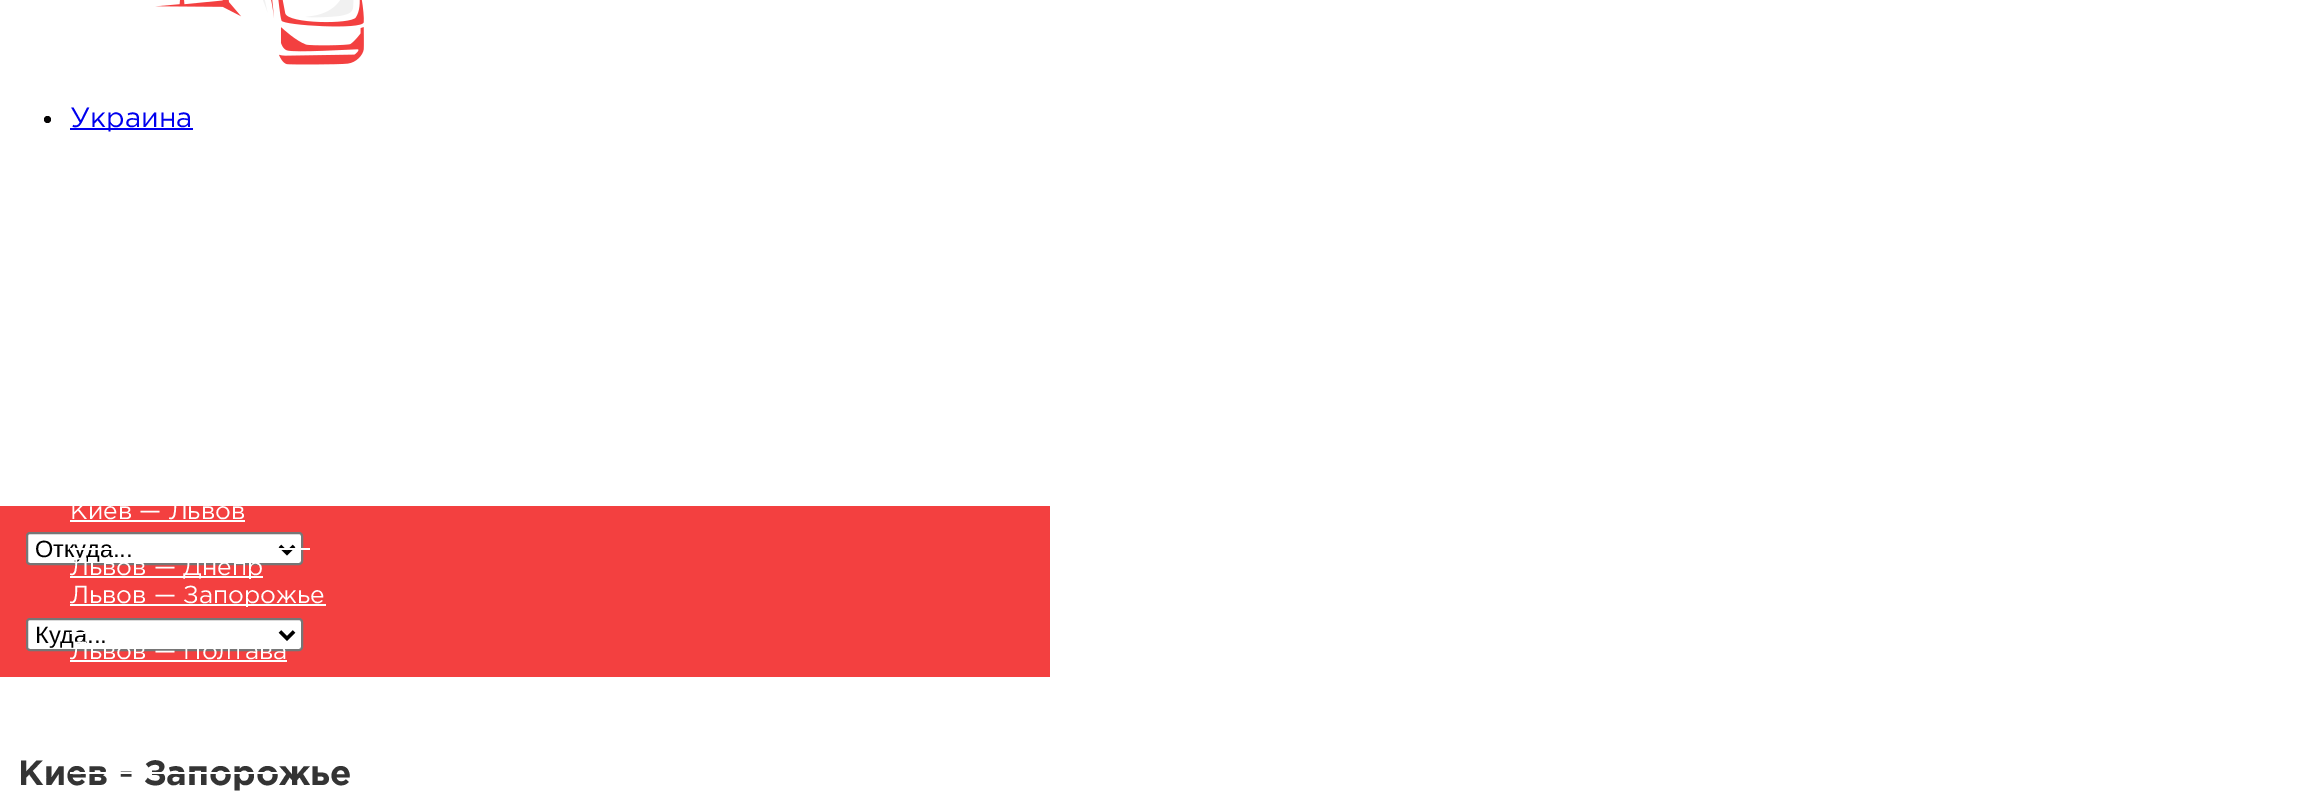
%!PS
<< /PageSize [2301 791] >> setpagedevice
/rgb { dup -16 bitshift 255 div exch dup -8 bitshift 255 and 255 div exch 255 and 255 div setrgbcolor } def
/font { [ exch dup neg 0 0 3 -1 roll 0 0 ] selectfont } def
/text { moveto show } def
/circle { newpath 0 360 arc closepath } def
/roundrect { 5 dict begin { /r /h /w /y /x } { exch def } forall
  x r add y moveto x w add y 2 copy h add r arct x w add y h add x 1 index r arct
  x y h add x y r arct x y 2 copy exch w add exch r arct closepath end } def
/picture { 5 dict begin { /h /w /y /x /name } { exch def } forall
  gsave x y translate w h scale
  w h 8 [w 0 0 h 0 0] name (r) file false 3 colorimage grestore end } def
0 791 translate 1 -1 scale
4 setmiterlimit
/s1 { /Gotham-Regular 28 font 16#0000EE rgb } def
/s2 { /Gotham-Regular 24.5 font 16#FFFFFF rgb } def
/s3 { /LiberationSans-Regular 23.5 font 16#000000 rgb } def
/s4 { /Gotham-Bold 35 font 16#343434 rgb } def
16#FFFFFF rgb
0 0 2301 791 rectfill
(pic1.raw) 155 0 209 65 picture
16#050404 rgb
47.5 119.5 3.5 circle fill
16#0000EE rgb
70 128 123 2 rectfill
s1
(Украина) 70 127 text
16#F34040 rgb
0 506 1050 171 rectfill
s2
(Киев — Львов) 70 519 text
70 520 175 2 rectfill
27 533 275 31 3 roundrect gsave fill grestore
16#767676 rgb
2 setlinewidth
stroke
16#000000 rgb
3.5 setlinewidth
280 546 moveto 287 553 lineto 294 546 lineto stroke
s3
(Откуда...) 35 557 text
16#FFFFFF rgb
70 548 240 2 rectfill
70 576 193 2 rectfill
s2
(Львов — Днепр) 70 575 text
70 604 256 2 rectfill
(Львов — Запорожье) 70 603 text
27 619 275 31 3 roundrect gsave fill grestore
16#767676 rgb
2 setlinewidth
stroke
s3
(Куда...) 35 643 text
16#FFFFFF rgb
70 632 15 2 rectfill
s2
(Львов — Полтава) 70 659 text
70 660 217 2 rectfill
s4
(Киев - Запорожье) 18 785 text
16#FFFFFF rgb
70 772 208 2 rectfill
16#000000 rgb
3.5 setlinewidth
280 631.5 moveto 287 638.5 lineto 294 631.5 lineto stroke
showpage
